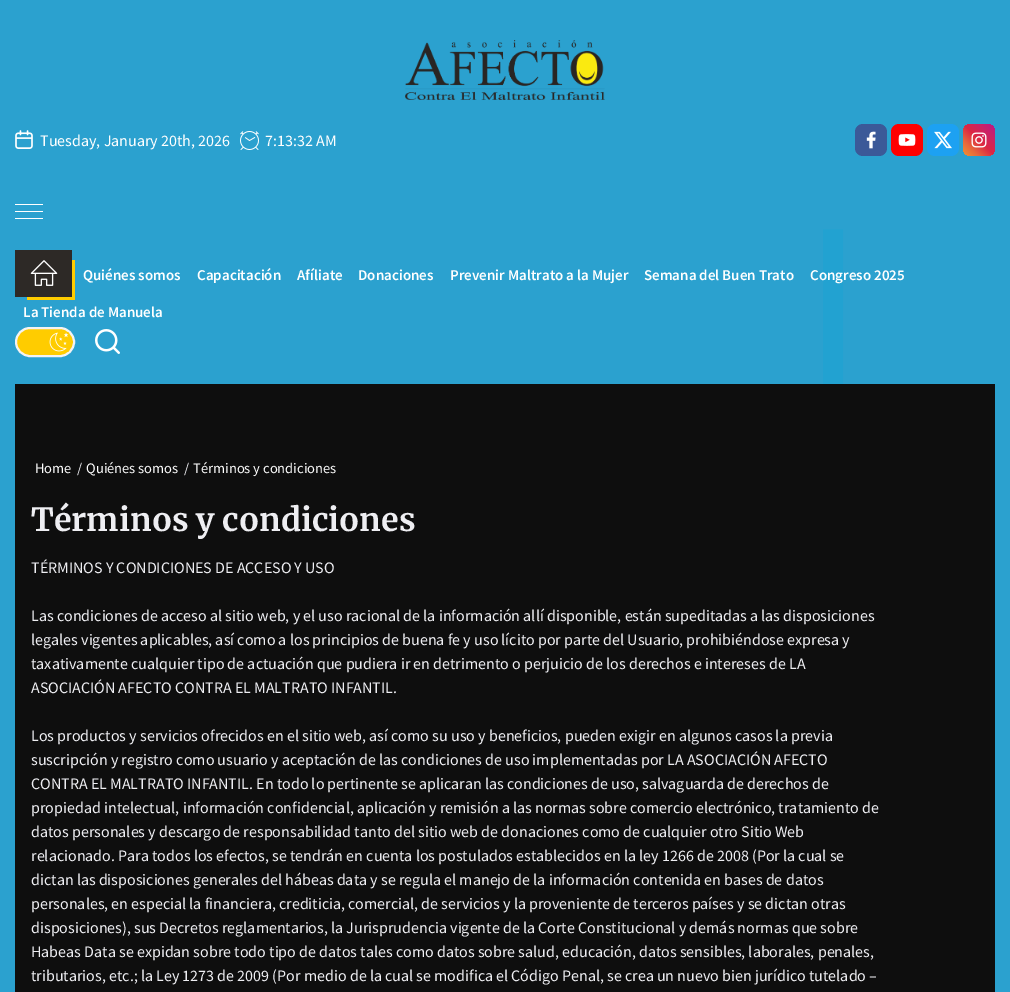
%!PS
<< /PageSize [1010 992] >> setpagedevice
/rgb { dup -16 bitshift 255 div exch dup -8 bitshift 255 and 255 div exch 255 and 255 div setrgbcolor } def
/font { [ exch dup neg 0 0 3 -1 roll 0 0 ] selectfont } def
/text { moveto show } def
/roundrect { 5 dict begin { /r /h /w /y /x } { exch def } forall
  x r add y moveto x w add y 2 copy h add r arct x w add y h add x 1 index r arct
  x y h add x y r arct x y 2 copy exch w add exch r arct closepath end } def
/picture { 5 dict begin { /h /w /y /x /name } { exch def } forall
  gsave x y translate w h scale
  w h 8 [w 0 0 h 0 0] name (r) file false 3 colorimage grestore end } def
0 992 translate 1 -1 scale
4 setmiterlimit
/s1 { /SourceSansPro-Regular 16 font 16#FFFFFF rgb } def
/s2 { /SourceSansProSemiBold-SemiBold 15 font 16#FFFFFF rgb } def
/s3 { /SourceSansPro-Regular 14.5 font 16#FFFFFF rgb } def
/s4 { /SourceSansPro-Regular 14.5 font 16#EEEEF2 rgb } def
/s5 { /Merriweather-Bold 32 font 16#EEEEF2 rgb } def
/s6 { /SourceSansPro-Regular 16 font 16#EEEEF2 rgb } def
16#FFFFFF rgb
0 0 1010 992 rectfill
(pic1.raw) 0 0 1010 992 picture
(pic2.raw) 405 40 200 60 picture
(pic3.raw) 15 130 18 19 picture
s1
(Tuesday, January 20th, 2026) 40 146 text
(pic4.raw) 240 131 19 19 picture
(7:13:32 AM) 265 146 text
16#3B5998 rgb
855 124 32 32 8 roundrect fill
(pic5.raw) 866 131 10 18 picture
16#FF0000 rgb
891 124 32 32 8 roundrect fill
(pic6.raw) 898 134 18 12 picture
16#1DA1F2 rgb
927 124 32 32 8 roundrect fill
(pic7.raw) 934 131 18 18 picture
gsave 963 124 32 32 8 roundrect clip newpath
<< /ShadingType 2 /ColorSpace /DeviceRGB /Coords [963 156 995 124] /Extend [true true] /Function << /FunctionType 3 /Domain [0 1] /Functions [<< /FunctionType 2 /Domain [0 1] /C0 [0.941 0.58 0.2] /C1 [0.902 0.408 0.235] /N 1 >> << /FunctionType 2 /Domain [0 1] /C0 [0.902 0.408 0.235] /C1 [0.863 0.153 0.263] /N 1 >> << /FunctionType 2 /Domain [0 1] /C0 [0.863 0.153 0.263] /C1 [0.8 0.137 0.4] /N 1 >> << /FunctionType 2 /Domain [0 1] /C0 [0.8 0.137 0.4] /C1 [0.737 0.094 0.533] /N 1 >>] /Bounds [0.25 0.5 0.75] /Encode [0 1 0 1 0 1 0 1] >> >> shfill grestore
(pic8.raw) 971 132 16 16 picture
16#FFFFFF rgb
15 211 28 1 rectfill
15 204 28 1 rectfill
15 218 28 1 rectfill
16#FFCC00 rgb
27 260 48 40 rectfill
16#2D2926 rgb
15 250 57 47 rectfill
(pic9.raw) 30 260 28 26 picture
s2
(Quiénes somos) 83 280 text
(Capacitación) 197 280 text
(Afíliate) 297 280 text
(Donaciones) 358 280 text
(Prevenir Maltrato a la Mujer) 450 280 text
(Semana del Buen Trato) 644 280 text
(Congreso 2025) 810 280 text
(La Tienda de Manuela) 23 317 text
16#FFCC00 rgb
16 328 58 28 14 roundrect gsave fill grestore
16#F3F3F3 rgb
2 setlinewidth
stroke
(pic10.raw) 49 332 20 20 picture
(pic11.raw) 95 329 25 25 picture
16#0E0E0E rgb
15 384 980 608 rectfill
s3
(Home) 35 473 text
s4
(/) 77 473 text
s3
(Quiénes somos) 86 473 text
s4
(/) 184 473 text
s3
(Términos y condiciones) 193 473 text
s5
(Términos y condiciones) 31 531 text
s6
(TÉRMINOS Y CONDICIONES DE ACCESO Y USO) 31 573 text
(Las condiciones de acceso al sitio web, y el uso racional de la información allí disponible, están supeditadas a las disposiciones) 31 621 text
(legales vigentes aplicables, así como a los principios de buena fe y uso lícito por parte del Usuario, prohibiéndose expresa y) 31 645 text
(taxativamente cualquier tipo de actuación que pudiera ir en detrimento o perjuicio de los derechos e intereses de LA) 31 669 text
(ASOCIACIÓN AFECTO CONTRA EL MALTRATO INFANTIL.) 31 693 text
(Los productos y servicios ofrecidos en el sitio web, así como su uso y beneficios, pueden exigir en algunos casos la previa) 31 741 text
(suscripción y registro como usuario y aceptación de las condiciones de uso implementadas por LA ASOCIACIÓN AFECTO) 31 765 text
(CONTRA EL MALTRATO INFANTIL. En todo lo pertinente se aplicaran las condiciones de uso, salvaguarda de derechos de) 31 789 text
(propiedad intelectual, información confidencial, aplicación y remisión a las normas sobre comercio electrónico, tratamiento de) 31 813 text
(datos personales y descargo de responsabilidad tanto del sitio web de donaciones como de cualquier otro Sitio Web) 31 837 text
(relacionado. Para todos los efectos, se tendrán en cuenta los postulados establecidos en la ley 1266 de 2008 \(Por la cual se) 31 861 text
(dictan las disposiciones generales del hábeas data y se regula el manejo de la información contenida en bases de datos) 31 885 text
(personales, en especial la financiera, crediticia, comercial, de servicios y la proveniente de terceros países y se dictan otras) 31 909 text
(disposiciones\), sus Decretos reglamentarios, la Jurisprudencia vigente de la Corte Constitucional y demás normas que sobre) 31 933 text
(Habeas Data se expidan sobre todo tipo de datos tales como datos sobre salud, educación, datos sensibles, laborales, penales,) 31 957 text
(tributarios, etc.; la Ley 1273 de 2009 \(Por medio de la cual se modifica el Código Penal, se crea un nuevo bien jurídico tutelado –) 31 981 text
showpage
